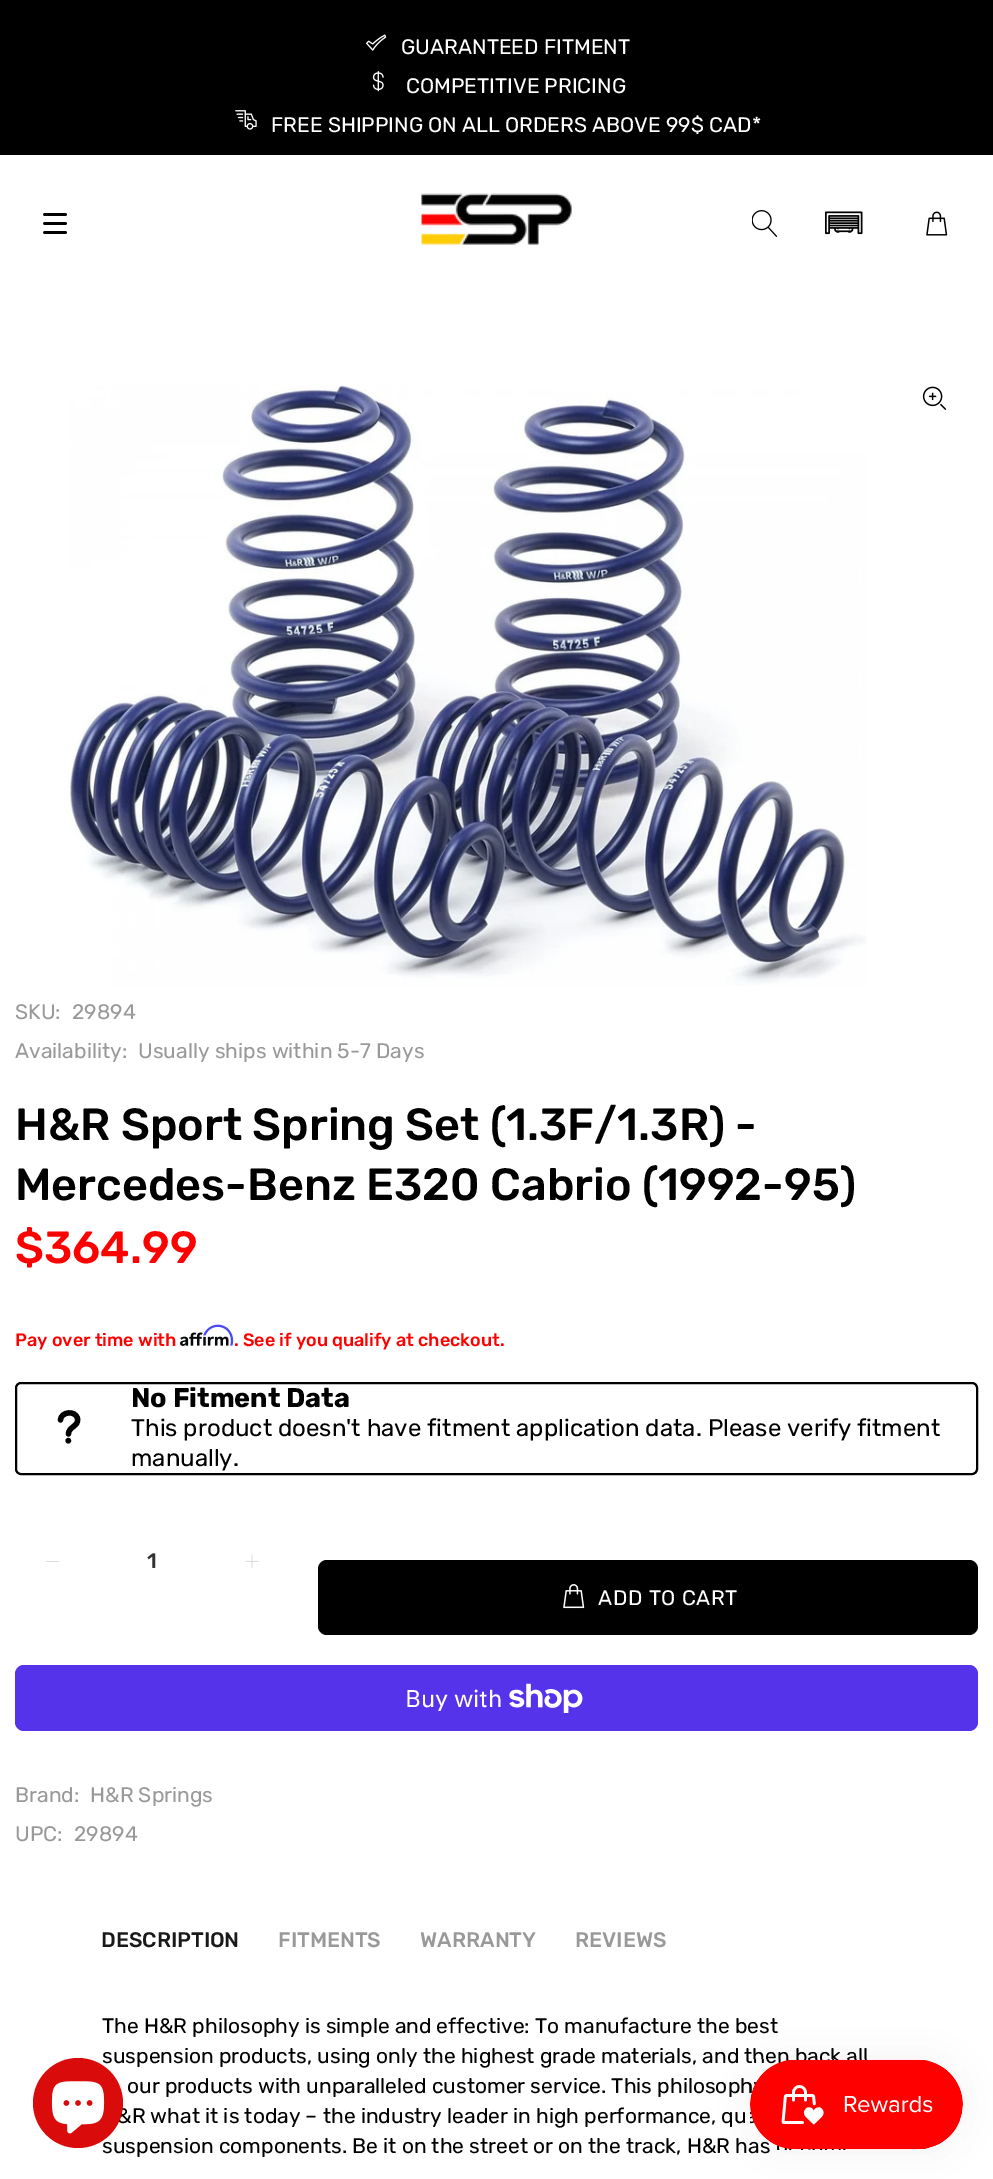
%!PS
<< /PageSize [993 2179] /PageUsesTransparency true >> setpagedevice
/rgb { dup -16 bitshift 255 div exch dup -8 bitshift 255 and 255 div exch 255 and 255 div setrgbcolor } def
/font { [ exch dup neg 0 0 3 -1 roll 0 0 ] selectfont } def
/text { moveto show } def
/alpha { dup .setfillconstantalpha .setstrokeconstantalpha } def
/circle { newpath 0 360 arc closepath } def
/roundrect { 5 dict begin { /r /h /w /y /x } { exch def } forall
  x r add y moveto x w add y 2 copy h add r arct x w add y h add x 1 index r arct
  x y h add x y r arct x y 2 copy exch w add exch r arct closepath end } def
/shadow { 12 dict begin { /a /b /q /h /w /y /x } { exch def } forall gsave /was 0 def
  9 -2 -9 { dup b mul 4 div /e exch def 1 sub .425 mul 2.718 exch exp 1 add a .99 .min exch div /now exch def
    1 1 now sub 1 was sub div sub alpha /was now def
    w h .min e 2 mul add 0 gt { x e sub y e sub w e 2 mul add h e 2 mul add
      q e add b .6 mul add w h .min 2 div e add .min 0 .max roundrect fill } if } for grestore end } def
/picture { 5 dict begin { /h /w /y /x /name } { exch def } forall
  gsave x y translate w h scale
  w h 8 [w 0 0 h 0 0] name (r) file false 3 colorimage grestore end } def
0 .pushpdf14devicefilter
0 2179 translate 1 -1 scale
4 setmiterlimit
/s1 { /Rubik-Regular 21 font 16#FFFFFF rgb } def
/s2 { /Rubik-Regular 21 font 16#999999 rgb } def
/s3 { /Rubik-Medium 45 font 16#000000 rgb } def
/s4 { /Rubik-Medium 45 font 16#FF0000 rgb } def
/s5 { /Rubik-Medium 18 font 16#FF0000 rgb } def
/s6 { /Rubik-Bold 27 font 16#000000 rgb } def
/s7 { /Rubik-Regular 24 font 16#000000 rgb } def
/s8 { /Rubik-Medium 21 font 16#333333 rgb } def
/s9 { /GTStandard-Regular 24 font 16#FFFFFF rgb } def
/s10 { /Rubik-Medium 21 font 16#191919 rgb } def
/s11 { /Rubik-Medium 21 font 16#999999 rgb } def
/s12 { /Rubik-Regular 21 font 16#000000 rgb } def
16#FFFFFF rgb
0 0 993 2179 rectfill
16#000000 rgb
0 0 993 155 rectfill
(pic1.raw) 366 34 21 17 picture
s1
(GUARANTEED FITMENT) 401 54 text
(pic2.raw) 372 71 12 21 picture
(COMPETITIVE PRICING) 406 93 text
(pic3.raw) 235 110 22 20 picture
(FREE SHIPPING ON ALL ORDERS ABOVE 99$ CAD*) 271 132 text
(pic4.raw) 43 213 24 21 picture
(pic5.raw) 421 193 151 52 picture
(pic6.raw) 752 210 26 27 picture
(pic7.raw) 825 211 38 24 picture
(pic8.raw) 926 211 22 25 picture
(pic9.raw) 68 385 799 601 picture
(pic10.raw) 922 386 25 24 picture
s2
(SKU:) 15 1019 text
(29894) 72 1019 text
(Availability:) 15 1058 text
(Usually ships within 5-7 Days) 138 1058 text
s3
(H&R Sport Spring Set \(1.3F/1.3R\) -) 15 1140 text
(Mercedes-Benz E320 Cabrio \(1992-95\)) 15 1200 text
s4
($364.99) 15 1263 text
s5
(Pay over time with) 15 1346 text
(pic12.raw) 180 1332 49 14 picture
(pic11.raw) 203 1324 31 22 picture
(. See if you qualify at checkout.) 234 1346 text
16#000000 rgb
2 setlinewidth
16 1383 961 91 5 roundrect stroke
5.3 setlinewidth
1 setlinecap
60.5 1420 moveto 61 1411.5 75.5 1410 77.5 1418.5 curveto 79 1426.5 68.5 1426.5 68.5 1434 curveto stroke
68.3 1440.7 2.8 circle fill
s6
(No Fitment Data) 131 1407 text
s7
(This product doesn't have fitment application data. Please verify fitment) 131 1436 text
(manually.) 131 1466 text
(pic13.raw) 46 1561 14 1 picture
s8
(1) 147 1568 text
(pic14.raw) 245 1554 14 14 picture
16#000000 rgb
318 1560 660 75 9 roundrect fill
(pic15.raw) 563 1584 22 25 picture
/Rubik-Regular 21 font
16#FFFFFF rgb
598 1605 moveto 0.6 0 (ADD TO CART) ashow
16#5433EB rgb
15 1665 963 66 9 roundrect fill
s9
(Buy with) 405 1707 text
(pic16.raw) 509 1683 74 30 picture
s2
(Brand:) 15 1802 text
(H&R Springs) 90 1802 text
(UPC:) 15 1841 text
(29894) 74 1841 text
s10
(DESCRIPTION) 101 1947 text
s11
(FITMENTS) 278 1947 text
(WARRANTY) 420 1947 text
(REVIEWS) 575 1947 text
s12
(The H&R philosophy is simple and effective: To manufacture the best) 102 2033 text
(suspension products, using only the highest grade materials, and then back all) 102 2063 text
(our products with unparalleled customer service. This philosoph) 127 2093 text
(&R what it is today – the industry leader in high performance, qu) 117 2123 text
(suspension components. Be it on the street or on the track, H&R has) 102 2153 text
16#DA0B0B rgb
78 2103 45 circle fill
(pic17.raw) 51 2081 54 53 picture
16#000000 rgb
750 2060 213 90 45 19 0.05 shadow
(pic18.raw) 750 2059 213 91 picture
.poppdf14devicefilter showpage
